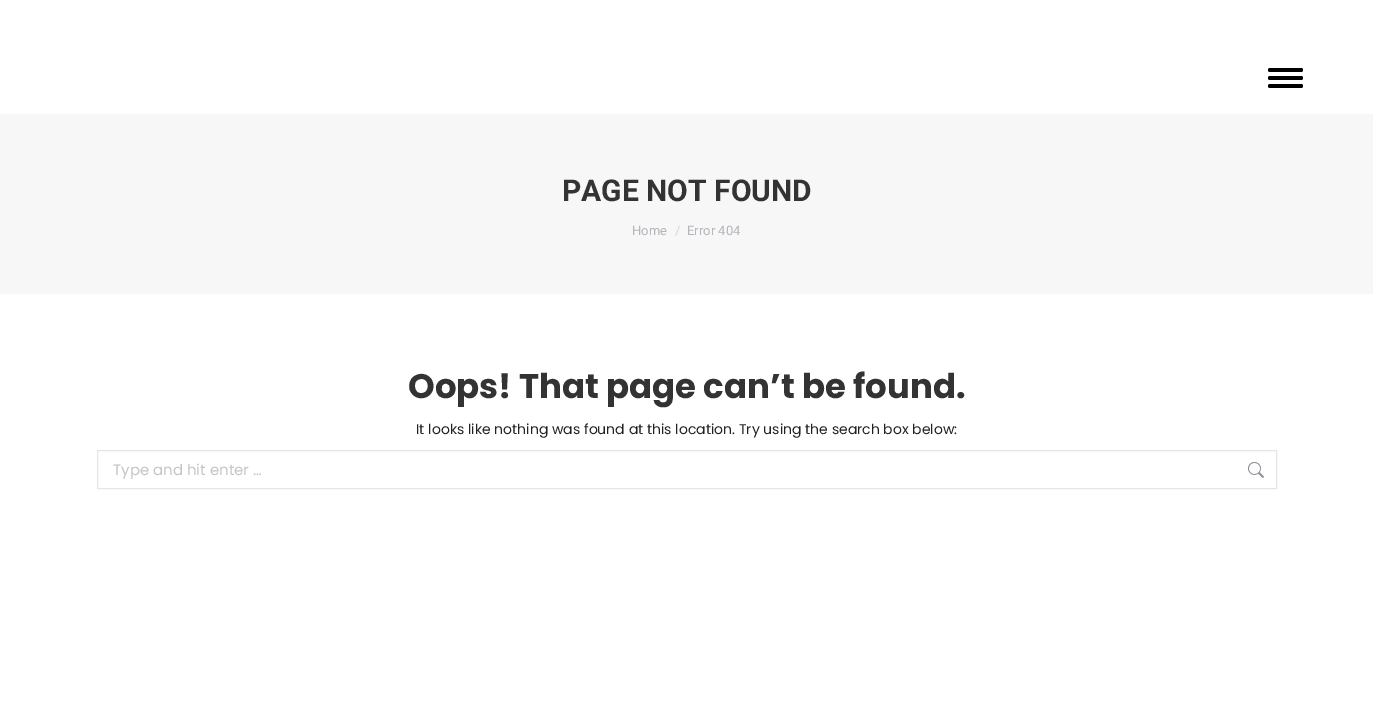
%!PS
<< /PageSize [1373 704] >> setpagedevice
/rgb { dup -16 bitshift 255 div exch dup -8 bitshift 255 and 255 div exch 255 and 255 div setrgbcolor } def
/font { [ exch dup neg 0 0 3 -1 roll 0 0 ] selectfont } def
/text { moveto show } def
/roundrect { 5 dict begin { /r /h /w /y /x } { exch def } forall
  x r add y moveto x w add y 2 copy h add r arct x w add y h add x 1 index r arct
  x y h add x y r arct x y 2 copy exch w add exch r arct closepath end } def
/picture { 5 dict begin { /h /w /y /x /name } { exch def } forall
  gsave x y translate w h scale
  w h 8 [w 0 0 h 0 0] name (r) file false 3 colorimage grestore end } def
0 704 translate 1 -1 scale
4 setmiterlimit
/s1 { /Roboto-Bold 30 font 16#333333 rgb } def
/s2 { /Roboto-Regular 13 font 16#B4B5BB rgb } def
/s3 { /Roboto-Regular 13 font 16#D6D6D9 rgb } def
/s4 { /Poppins-Bold 34 font 16#333333 rgb } def
/s5 { /Poppins-Regular 14 font 16#222226 rgb } def
/s6 { /Poppins-Regular 15 font 16#C4C5C9 rgb } def
16#FFFFFF rgb
0 0 1373 704 rectfill
16#000000 rgb
1268 68 35 4 2 roundrect fill
1268 76 35 4 2 roundrect fill
1268 84 35 4 2 roundrect fill
16#F7F7F7 rgb
0 114 1373 180 rectfill
s1
(PAGE NOT FOUND) 562 201 text
s2
(Home) 632 235 text
s3
(/) 675 235 text
s2
(Error 404) 687 235 text
s4
(Oops! That page can’t be found.) 408 398 text
s5
(It looks like nothing was found at this location. Try using the search box below:) 416 434 text
16#E5E5E5 rgb
97.5 450.5 1179 38 0.5 roundrect stroke
s6
(Type and hit enter …) 113 475 text
(pic1.raw) 1248 462 16 16 picture
showpage
